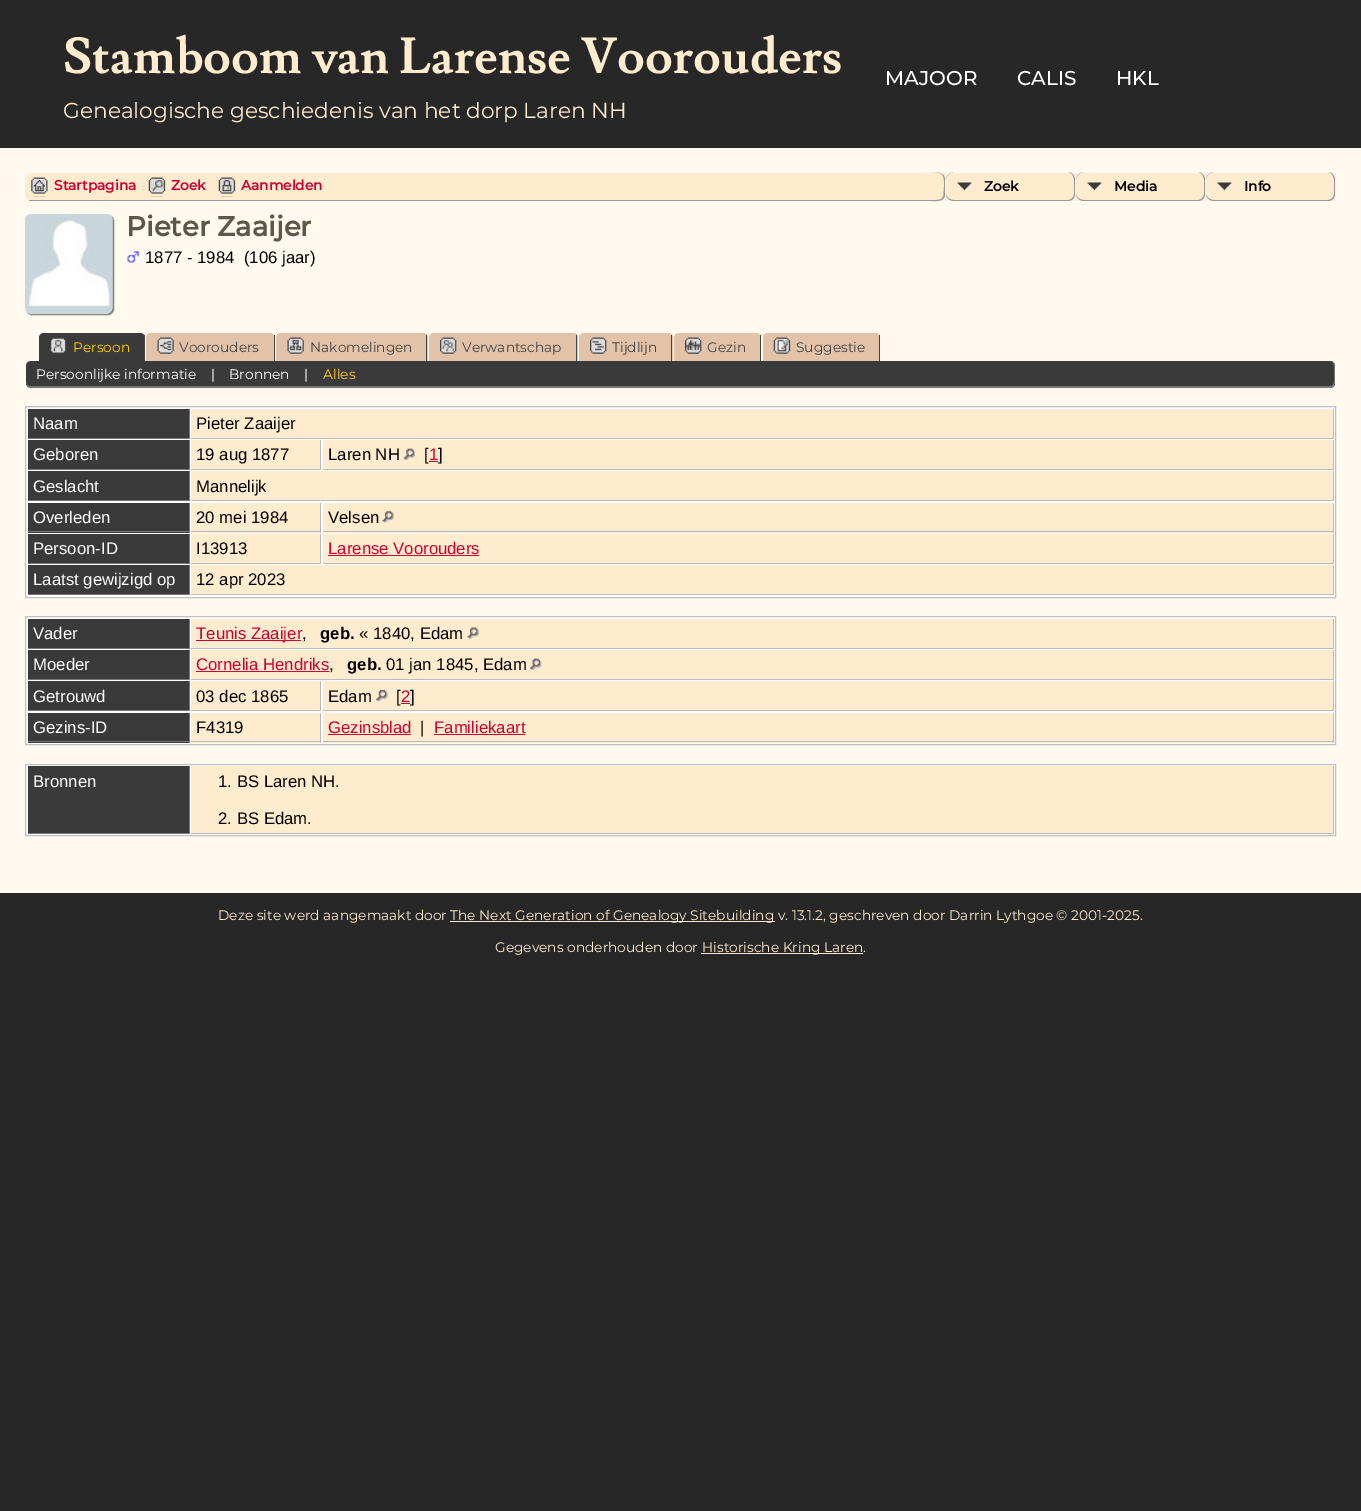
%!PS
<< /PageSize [1361 1511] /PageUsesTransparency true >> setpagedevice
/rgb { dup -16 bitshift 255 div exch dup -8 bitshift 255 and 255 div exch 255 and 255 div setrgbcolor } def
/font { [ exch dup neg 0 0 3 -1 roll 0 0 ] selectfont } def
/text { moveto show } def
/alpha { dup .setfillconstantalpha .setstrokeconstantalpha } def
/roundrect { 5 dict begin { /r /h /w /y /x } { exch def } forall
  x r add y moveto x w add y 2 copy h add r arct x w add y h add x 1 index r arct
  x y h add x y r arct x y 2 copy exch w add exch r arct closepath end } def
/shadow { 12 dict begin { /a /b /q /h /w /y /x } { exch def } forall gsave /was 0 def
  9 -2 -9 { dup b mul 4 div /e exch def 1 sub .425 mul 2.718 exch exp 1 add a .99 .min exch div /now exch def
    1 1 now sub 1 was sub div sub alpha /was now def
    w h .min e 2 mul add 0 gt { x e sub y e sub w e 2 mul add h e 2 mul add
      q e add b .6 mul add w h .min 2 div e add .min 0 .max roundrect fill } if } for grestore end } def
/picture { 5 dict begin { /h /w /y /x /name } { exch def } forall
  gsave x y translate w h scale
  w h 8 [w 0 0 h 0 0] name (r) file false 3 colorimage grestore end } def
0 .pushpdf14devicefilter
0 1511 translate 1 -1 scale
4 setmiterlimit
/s1 { /Lusitana-Bold 50 font 16#FFEBCD rgb } def
/s2 { /Montserrat-Regular 21.7 font 16#FFEBCD rgb } def
/s3 { /Montserrat-Medium 20 font 16#FFFFFF rgb } def
/s4 { /Montserrat-Bold 13.75 font 16#CC0033 rgb } def
/s5 { /Montserrat-Bold 13.75 font 16#000000 rgb } def
/s6 { /Montserrat-Bold 27.5 font 16#5F5649 rgb } def
/s7 { /LiberationSans-Regular 16.75 font 16#000000 rgb } def
/s8 { /Montserrat-Regular 13.75 font 16#FFCC00 rgb } def
/s9 { /Montserrat-Regular 13.75 font 16#444444 rgb } def
/s10 { /Montserrat-Regular 13.75 font 16#FFFFFF rgb } def
/s11 { /Montserrat-Regular 13.75 font 16#FFCC33 rgb } def
/s12 { /LiberationSans-Regular 16.75 font 16#FFFFFF rgb } def
/s13 { /LiberationSans-Regular 16.75 font 16#CC0033 rgb } def
/s14 { /LiberationSans-Bold 16.75 font 16#000000 rgb } def
/s15 { /Montserrat-Regular 13.75 font 16#FFEBCD rgb } def
16#272727 rgb
0 0 1361 1511 rectfill
s1
(Stamboom van Larense Voorouders) 63 73 text
s2
(Genealogische geschiedenis van het dorp Laren NH) 63 118 text
s3
(MAJOOR) 885 85 text
(CALIS) 1017 85 text
(HKL) 1116 85 text
16#FFF9F0 rgb
0 148 1361 745 rectfill
16#FFEBCD rgb
25 173 1311 28 8 roundrect fill
16#999999 rgb
29 200 902 1 rectfill
(pic1.raw) 31 177 17 20 picture
s4
(Startpagina) 54 190 text
(pic2.raw) 148 177 18 20 picture
(Zoek) 171 190 text
(pic3.raw) 218 177 18 20 picture
(Aanmelden) 241 190 text
16#F9F0E8 rgb
937 173 399 28 rectfill
16#FFEBCD rgb
931 173 moveto 937 173 lineto 941.5 173 945 176.5 945 181 curveto 945 193 lineto 945 197.5 941.5 201 937 201 curveto 931 201 lineto closepath fill
16#999999 rgb
931 172.5 moveto 936.5 172.5 943.5 171.5 945 178.5 curveto 945 195.5 lineto 943.5 202 936.5 201 931 201 curveto closepath 931 172.5 moveto 939 172.5 lineto 945 174 944 182 944 187 curveto 943.5 195 lineto 942.5 201 936 200 931 200 curveto closepath eofill
16#FFEBCD rgb
946 173 129 28 8 roundrect fill
(pic4.raw) 957 182 15 9 picture
16#999999 rgb
954 172 moveto 1068 172 lineto 1072 172 1075 176 1075 180 curveto 1075 194 lineto 1075 198 1072 201 1068 201 curveto 954 201 lineto 950 201 946 198 946 194 curveto 946 180 lineto 946 176 950 172 954 172 curveto closepath 954 172 moveto 1068 172 lineto 1071 172 1074 176 1074 180 curveto 1074 194 lineto 1074 197 1071 200 1068 200 curveto 954 200 lineto 950 200 946 197 946 194 curveto 946 180 lineto 946 176 950 172 954 172 curveto closepath eofill
s5
(Zoek) 984 191 text
16#FFEBCD rgb
1076 173 129 28 8 roundrect fill
(pic4.raw) 1087 182 15 9 picture
16#999999 rgb
1084 172 moveto 1198 172 lineto 1202 172 1205 176 1205 180 curveto 1205 194 lineto 1205 198 1202 201 1198 201 curveto 1084 201 lineto 1080 201 1076 198 1076 194 curveto 1076 180 lineto 1076 176 1080 172 1084 172 curveto closepath 1084 172 moveto 1198 172 lineto 1201 172 1204 176 1204 180 curveto 1204 194 lineto 1204 197 1201 200 1198 200 curveto 1084 200 lineto 1080 200 1076 197 1076 194 curveto 1076 180 lineto 1076 176 1080 172 1084 172 curveto closepath eofill
s5
(Media) 1114 191 text
16#FFEBCD rgb
1206 173 129 28 8 roundrect fill
(pic5.raw) 1217 182 15 9 picture
16#999999 rgb
1214 172 moveto 1328 172 lineto 1332 172 1335 176 1335 180 curveto 1335 194 lineto 1335 198 1332 201 1328 201 curveto 1214 201 lineto 1210 201 1206 198 1206 194 curveto 1206 180 lineto 1206 176 1210 172 1214 172 curveto closepath 1214 172 moveto 1328 172 lineto 1331 172 1334 176 1334 180 curveto 1334 194 lineto 1334 197 1331 200 1328 200 curveto 1214 200 lineto 1210 200 1206 197 1206 194 curveto 1206 180 lineto 1206 176 1210 172 1214 172 curveto closepath eofill
s5
(Info) 1244 191 text
16#777777 rgb
26 215 88 100 6 0.5 1 shadow
(pic6.raw) 25 214 88 100 picture
s6
(Pieter Zaaijer) 126 236 text
(pic7.raw) 127 251 12 12 picture
s7
(1877 - 1984  \(106 jaar\)) 145 263 text
16#3A3A3A rgb
44 333 moveto 140 333 lineto 143 333 145 335 145 338 curveto 145 361 lineto 39 361 lineto 39 338 lineto 39 335 41 333 44 333 curveto closepath fill
16#444444 rgb
144 335 1 26 rectfill
(pic8.raw) 50 337 16 17 picture
s8
(Persoon) 73 352 text
16#E2C2A9 rgb
151 333 moveto 270 333 lineto 273 333 275 335 275 338 curveto 275 361 lineto 146 361 lineto 146 338 lineto 146 335 148 333 151 333 curveto closepath fill
16#444444 rgb
274 335 1 26 rectfill
(pic9.raw) 157 337 17 17 picture
(Voorouders) 179 352 text
16#E2C2A9 rgb
281 333 moveto 423 333 lineto 426 333 428 335 428 338 curveto 428 361 lineto 276 361 lineto 276 338 lineto 276 335 278 333 281 333 curveto closepath fill
16#444444 rgb
426 335 1 26 rectfill
(pic10.raw) 287 337 17 17 picture
(Nakomelingen) 310 352 text
16#E2C2A9 rgb
434 333 moveto 573 333 lineto 576 333 578 335 578 338 curveto 578 361 lineto 429 361 lineto 429 338 lineto 429 335 431 333 434 333 curveto closepath fill
16#444444 rgb
576 335 1 26 rectfill
(pic11.raw) 440 337 17 17 picture
(Verwantschap) 462 352 text
16#E2C2A9 rgb
584 333 moveto 668 333 lineto 671 333 673 335 673 338 curveto 673 361 lineto 579 361 lineto 579 338 lineto 579 335 581 333 584 333 curveto closepath fill
16#444444 rgb
671 335 1 26 rectfill
(pic12.raw) 590 337 17 17 picture
(Tijdlijn) 612 352 text
16#E2C2A9 rgb
679 333 moveto 756 333 lineto 759 333 761 335 761 338 curveto 761 361 lineto 674 361 lineto 674 338 lineto 674 335 676 333 679 333 curveto closepath fill
16#444444 rgb
760 335 1 26 rectfill
(pic13.raw) 685 337 17 17 picture
(Gezin) 707 352 text
16#E2C2A9 rgb
768 333 moveto 875 333 lineto 878 333 880 335 880 338 curveto 880 361 lineto 763 361 lineto 763 338 lineto 763 335 765 333 768 333 curveto closepath fill
16#444444 rgb
879 335 1 26 rectfill
(pic14.raw) 773 337 18 17 picture
(Suggestie) 796 352 text
16#3A3A3A rgb
26 361 1309 27 5 roundrect fill
16#777777 rgb
31 361 moveto 1330 361 lineto 1333 361 1335 363 1335 366 curveto 1335 382 lineto 1335 385 1333 388 1330 388 curveto 31 388 lineto 28 388 26 385 26 382 curveto 26 366 lineto 26 363 28 361 31 361 curveto closepath 31 361 moveto 1330 361 lineto 1332 361 1334 363 1334 366 curveto 1334 382 lineto 1334 385 1332 386 1330 386 curveto 31 386 lineto 28 386 26 385 26 382 curveto 26 366 lineto 26 363 28 361 31 361 curveto closepath eofill
s10
(Persoonlijke informatie) 36 379 text
(|) 211 379 text
(Bronnen) 229 379 text
(|) 304 379 text
s11
(Alles) 323 379 text
16#FFFFFF rgb
25.5 406.5 moveto 1335.5 406.5 lineto 1335.5 597.5 lineto 25.5 597.5 lineto closepath gsave fill grestore
16#C0C0C0 rgb
stroke
16#3A3A3A rgb
28 409 161 29 rectfill
16#777777 rgb
189 409 1 30 rectfill
28 438 162 1 rectfill
s12
(Naam) 33 429 text
16#FFEBCD rgb
191 409 1142 29 rectfill
16#BBBBBB rgb
1333 409 1 30 rectfill
191 438 1143 1 rectfill
s7
(Pieter Zaaijer) 196 429 text
16#3A3A3A rgb
28 440 161 29 rectfill
16#777777 rgb
189 440 1 30 rectfill
28 469 162 1 rectfill
s12
(Geboren) 33 460 text
16#FFEBCD rgb
191 440 129 29 rectfill
16#BBBBBB rgb
320 440 1 30 rectfill
191 469 130 1 rectfill
s7
(19 aug 1877) 196 460 text
16#FFEBCD rgb
323 440 1010 29 rectfill
16#BBBBBB rgb
1333 440 1 30 rectfill
323 469 1011 1 rectfill
s7
(Laren NH) 328 460 text
(pic15.raw) 403 448 12 12 picture
([) 424 460 text
s13
(1) 429 460 text
429 461 9 1 rectfill
s7
(]) 438 460 text
16#3A3A3A rgb
28 471 161 29 rectfill
16#777777 rgb
189 471 1 30 rectfill
28 500 162 1 rectfill
s12
(Geslacht) 33 492 text
16#FFEBCD rgb
191 471 1142 29 rectfill
16#BBBBBB rgb
1333 471 1 30 rectfill
191 500 1143 1 rectfill
s7
(Mannelijk) 196 492 text
16#3A3A3A rgb
28 503 161 30 rectfill
16#777777 rgb
189 503 1 30 rectfill
28 531 162 1 rectfill
s12
(Overleden) 33 523 text
16#FFEBCD rgb
191 503 129 30 rectfill
16#BBBBBB rgb
320 503 1 30 rectfill
191 531 130 1 rectfill
s7
(20 mei 1984) 196 523 text
16#FFEBCD rgb
323 503 1010 30 rectfill
16#BBBBBB rgb
1333 503 1 30 rectfill
323 531 1011 1 rectfill
s7
(Velsen) 328 523 text
(pic16.raw) 382 511 12 12 picture
16#3A3A3A rgb
28 534 161 29 rectfill
16#777777 rgb
189 534 1 30 rectfill
28 563 162 1 rectfill
s12
(Persoon-ID) 33 554 text
16#FFEBCD rgb
191 534 129 29 rectfill
16#BBBBBB rgb
320 534 1 30 rectfill
191 563 130 1 rectfill
s7
(I13913) 196 554 text
16#FFEBCD rgb
323 534 1010 29 rectfill
16#BBBBBB rgb
1333 534 1 30 rectfill
323 563 1011 1 rectfill
s13
(Larense Voorouders) 328 554 text
328 555 151 1 rectfill
16#3A3A3A rgb
28 565 161 29 rectfill
16#777777 rgb
189 565 1 30 rectfill
28 594 162 1 rectfill
s12
(Laatst gewijzigd op) 33 585 text
16#FFEBCD rgb
191 565 1142 29 rectfill
16#BBBBBB rgb
1333 565 1 30 rectfill
191 594 1143 1 rectfill
s7
(12 apr 2023) 196 585 text
16#FFFFFF rgb
25.5 616.5 moveto 1335.5 616.5 lineto 1335.5 744.5 lineto 25.5 744.5 lineto closepath gsave fill grestore
16#C0C0C0 rgb
stroke
16#3A3A3A rgb
28 619 161 29 rectfill
16#777777 rgb
189 619 1 30 rectfill
28 648 162 1 rectfill
s12
(Vader) 33 639 text
16#FFEBCD rgb
191 619 1142 29 rectfill
16#BBBBBB rgb
1333 619 1 30 rectfill
191 648 1143 1 rectfill
16#CC0033 rgb
196 640 105 1 rectfill
(Teunis Zaaijer) 196 639 text
s14
(geb.) 320 639 text
s7
(« 1840, Edam) 359 639 text
(pic17.raw) 467 627 12 12 picture
(,) 302 639 text
16#3A3A3A rgb
28 650 161 29 rectfill
16#777777 rgb
189 650 1 30 rectfill
28 679 162 1 rectfill
s12
(Moeder) 33 670 text
16#FFEBCD rgb
191 650 1142 29 rectfill
16#BBBBBB rgb
1333 650 1 30 rectfill
191 679 1143 1 rectfill
s13
(Cornelia Hendriks) 196 670 text
196 671 133 1 rectfill
s14
(geb.) 347 670 text
s7
(01 jan 1845, Edam) 386 670 text
(pic18.raw) 530 658 12 12 picture
(,) 329 670 text
16#3A3A3A rgb
28 681 161 29 rectfill
16#777777 rgb
189 681 1 30 rectfill
28 710 162 1 rectfill
s12
(Getrouwd) 33 702 text
16#FFEBCD rgb
191 681 129 29 rectfill
16#BBBBBB rgb
320 681 1 30 rectfill
191 710 130 1 rectfill
s7
(03 dec 1865) 196 702 text
16#FFEBCD rgb
323 681 1010 29 rectfill
16#BBBBBB rgb
1333 681 1 30 rectfill
323 710 1011 1 rectfill
s7
(Edam) 328 702 text
(pic19.raw) 376 690 12 12 picture
([) 396 702 text
s13
(2) 401 702 text
401 703 9 1 rectfill
s7
(]) 410 702 text
16#3A3A3A rgb
28 713 161 30 rectfill
16#777777 rgb
189 713 1 30 rectfill
28 741 162 1 rectfill
s12
(Gezins-ID) 33 733 text
16#FFEBCD rgb
191 713 129 30 rectfill
16#BBBBBB rgb
320 713 1 30 rectfill
191 741 130 1 rectfill
s7
(F4319) 196 733 text
16#FFEBCD rgb
323 713 1010 30 rectfill
16#BBBBBB rgb
1333 713 1 30 rectfill
323 741 1011 1 rectfill
s13
(Gezinsblad) 328 733 text
328 734 83 1 rectfill
s7
(|) 420 733 text
s13
(Familiekaart) 434 733 text
434 734 91 1 rectfill
16#FFFFFF rgb
25.5 764.5 moveto 1335.5 764.5 lineto 1335.5 835.5 lineto 25.5 835.5 lineto closepath gsave fill grestore
16#C0C0C0 rgb
stroke
16#3A3A3A rgb
28 766 161 67 rectfill
16#777777 rgb
189 766 1 68 rectfill
28 833 162 1 rectfill
s12
(Bronnen) 33 787 text
16#FFEBCD rgb
191 766 1142 67 rectfill
16#BBBBBB rgb
1333 766 1 68 rectfill
191 833 1143 1 rectfill
s7
(1. BS Laren NH.) 218 787 text
(2. BS Edam.) 218 824 text
s15
(Deze site werd aangemaakt door) 218 920 text
450 921 325 1 rectfill
(The Next Generation of Genealogy Sitebuilding v. 13.1.2, geschreven door Darrin Lythgoe © 2001-2025.) 450 920 text
(Gegevens onderhouden door) 495 952 text
701 953 162 1 rectfill
(Historische Kring Laren.) 702 952 text
.poppdf14devicefilter showpage
